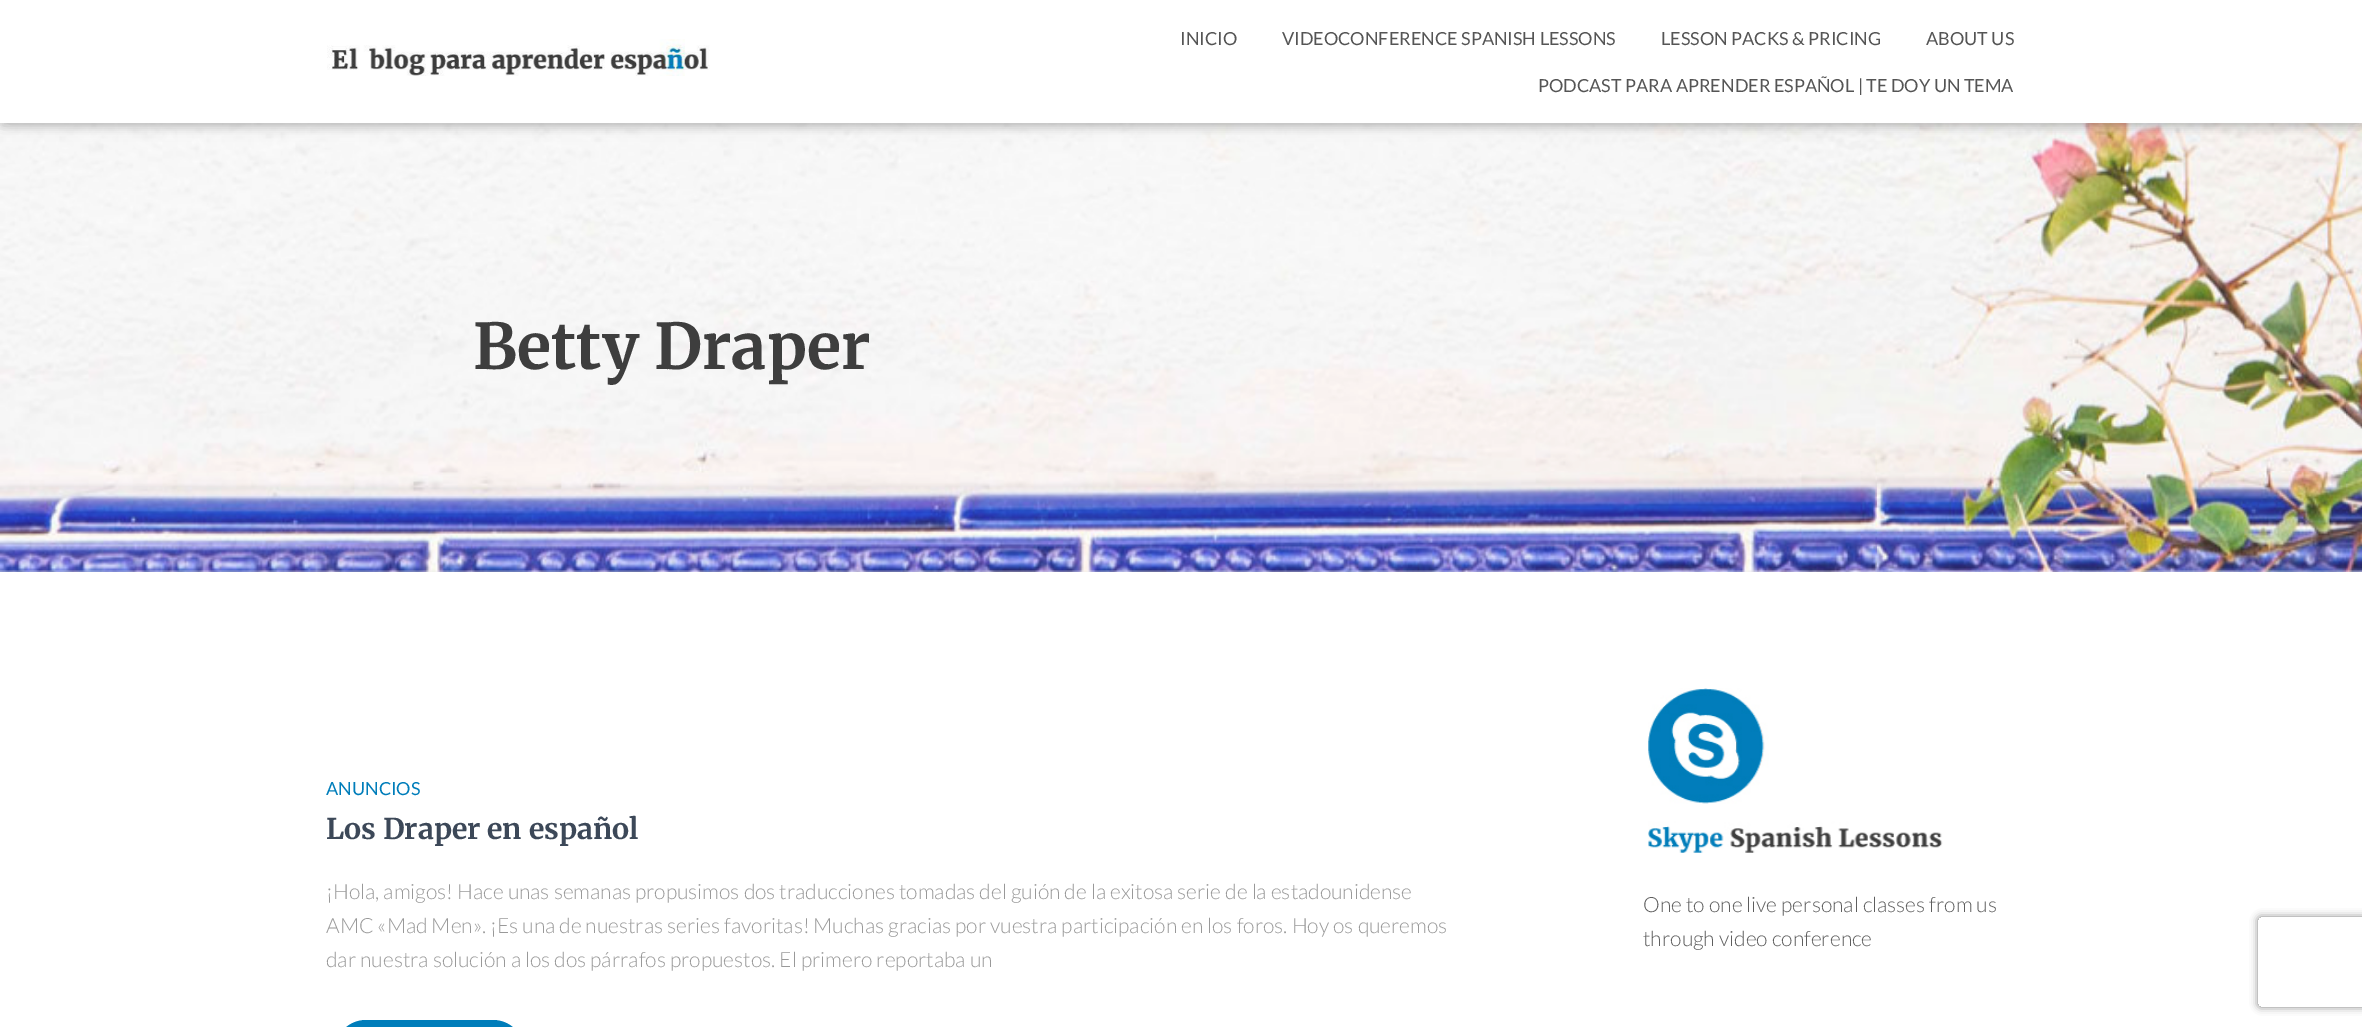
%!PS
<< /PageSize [2362 1027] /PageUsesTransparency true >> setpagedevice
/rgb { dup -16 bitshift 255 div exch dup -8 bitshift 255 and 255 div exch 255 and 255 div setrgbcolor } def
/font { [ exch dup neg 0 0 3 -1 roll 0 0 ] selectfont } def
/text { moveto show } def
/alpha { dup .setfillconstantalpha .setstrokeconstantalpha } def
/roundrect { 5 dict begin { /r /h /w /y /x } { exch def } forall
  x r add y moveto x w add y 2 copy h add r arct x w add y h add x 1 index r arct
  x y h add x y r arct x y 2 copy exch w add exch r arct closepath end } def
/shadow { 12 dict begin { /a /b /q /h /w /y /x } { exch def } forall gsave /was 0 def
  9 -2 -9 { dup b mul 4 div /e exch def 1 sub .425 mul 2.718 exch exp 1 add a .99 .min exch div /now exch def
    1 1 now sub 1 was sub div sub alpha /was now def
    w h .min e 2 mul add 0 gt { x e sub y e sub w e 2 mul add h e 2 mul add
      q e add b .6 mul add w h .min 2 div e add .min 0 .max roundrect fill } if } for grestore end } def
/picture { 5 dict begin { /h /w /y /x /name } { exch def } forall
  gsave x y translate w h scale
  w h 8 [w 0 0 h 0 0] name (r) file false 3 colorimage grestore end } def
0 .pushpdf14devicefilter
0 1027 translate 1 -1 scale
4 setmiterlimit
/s1 { /Lato-Regular 18 font 16#555555 rgb } def
/s2 { /Merriweather-Bold 63 font 16#3E3E3E rgb } def
/s3 { /Lato-Regular 18 font 16#007DBA rgb } def
/s4 { /Merriweather-Bold 28.5 font 16#3C4858 rgb } def
/s5 { /Lato-Light 21 font 16#999999 rgb } def
/s6 { /Lato-Light 21 font 16#5E5E5E rgb } def
16#E9E9E9 rgb
0 0 2362 1027 rectfill
(pic2.raw) 0 123 2362 449 picture
16#000000 rgb
3 9 2357 117 0 4 0.1 shadow
0 2 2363 123 0 7.5 0.12 shadow
9 11 2345 105 0 7.5 0.42 shadow
16#FFFFFF rgb
0 0 2362 123 rectfill
(pic1.raw) 327 39 383 37 picture
s1
(INICIO) 1180 45 text
(VIDEOCONFERENCE SPANISH LESSONS) 1282 45 text
(LESSON PACKS & PRICING) 1661 45 text
(ABOUT US) 1926 45 text
(PODCAST PARA APRENDER ESPAÑOL | TE DOY UN TEMA) 1538 92 text
s2
(Betty Draper) 473 369 text
16#FFFFFF rgb
0 572 2362 455 rectfill
s3
(ANUNCIOS) 326 795 text
s4
(Los Draper en español) 326 839 text
s5
(¡Hola, amigos! Hace unas semanas propusimos dos traducciones tomadas del guión de la exitosa serie de la estadounidense) 326 899 text
(AMC «Mad Men». ¡Es una de nuestras series favoritas! Muchas gracias por vuestra participación en los foros. Hoy os queremos) 326 933 text
(dar nuestra solución a los dos párrafos propuestos. El primero reportaba un) 326 967 text
16#007DBA rgb
335 1020 189 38 31 roundrect fill
(pic3.raw) 1648 688 295 165 picture
s6
(One to one live personal classes from us) 1643 912 text
(through video conference) 1643 946 text
gsave
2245 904 moveto 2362 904 lineto 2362 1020 lineto 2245 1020 lineto closepath 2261 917 moveto 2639 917 lineto 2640.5 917 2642 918.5 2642 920 curveto 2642 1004 lineto 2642 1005.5 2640.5 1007 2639 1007 curveto 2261 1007 lineto 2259.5 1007 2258 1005.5 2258 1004 curveto 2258 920 lineto 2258 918.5 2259.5 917 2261 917 curveto closepath eoclip newpath
16#808080 rgb
2258 917 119 90 3 4 1 shadow
grestore
.poppdf14devicefilter showpage
